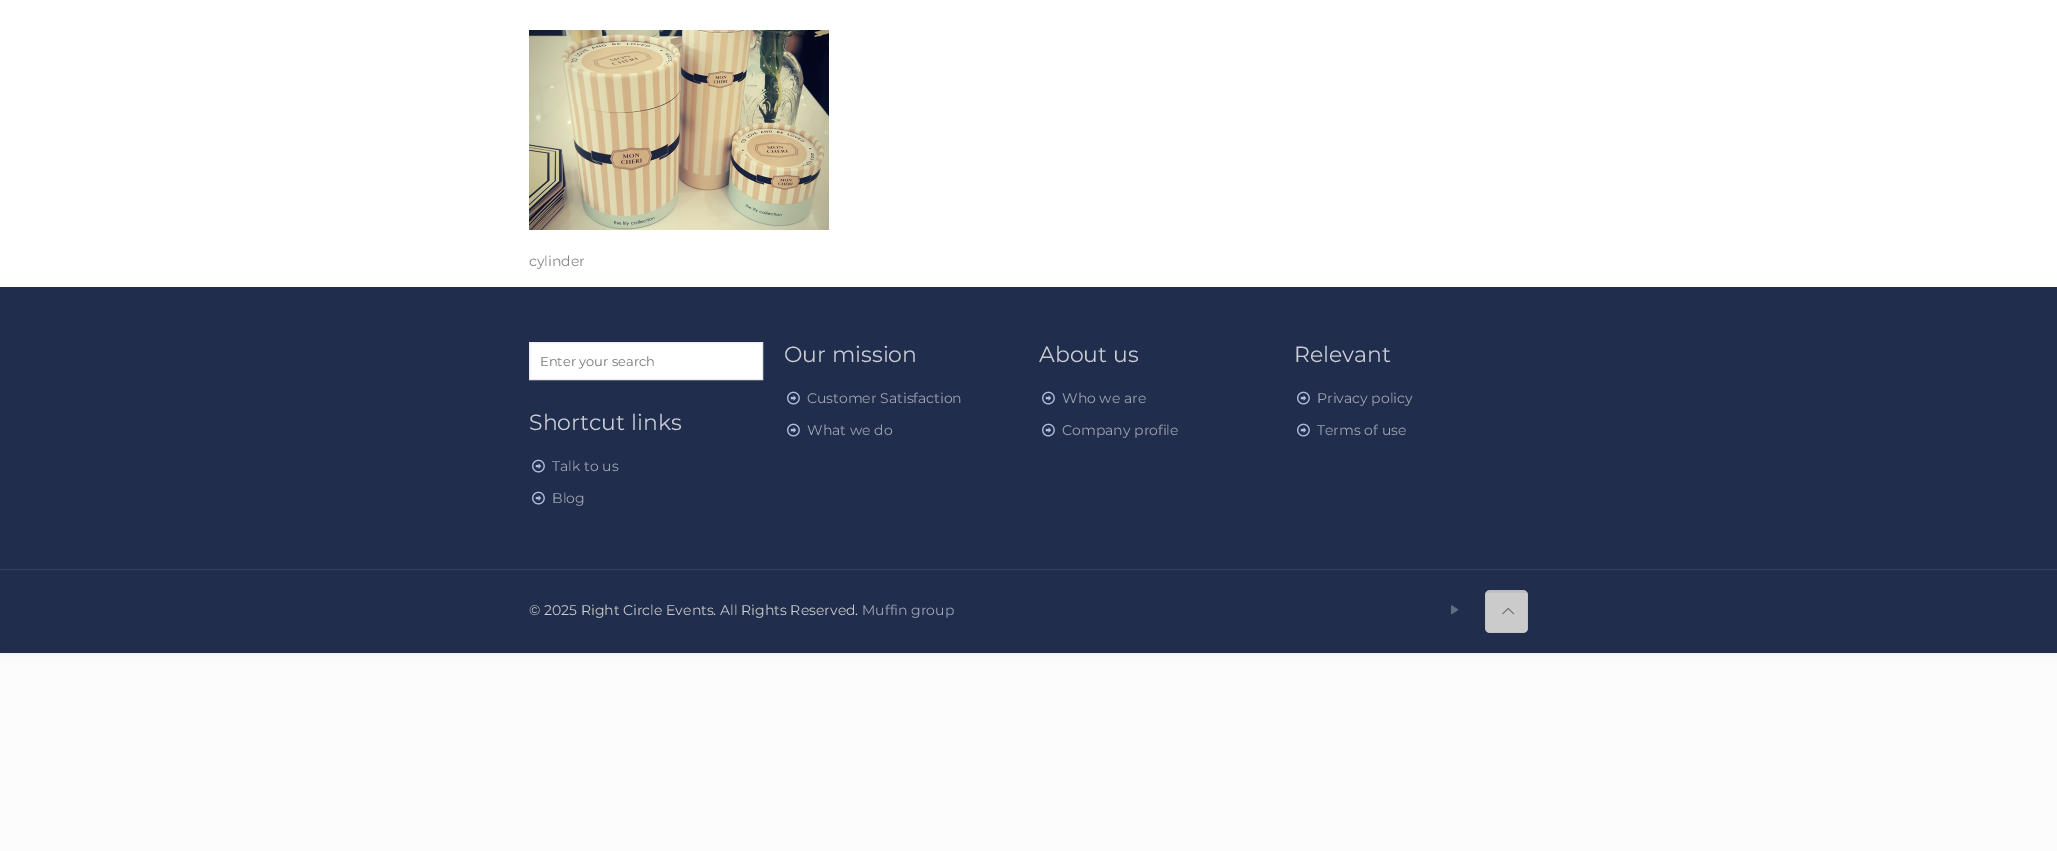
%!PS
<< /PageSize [2057 851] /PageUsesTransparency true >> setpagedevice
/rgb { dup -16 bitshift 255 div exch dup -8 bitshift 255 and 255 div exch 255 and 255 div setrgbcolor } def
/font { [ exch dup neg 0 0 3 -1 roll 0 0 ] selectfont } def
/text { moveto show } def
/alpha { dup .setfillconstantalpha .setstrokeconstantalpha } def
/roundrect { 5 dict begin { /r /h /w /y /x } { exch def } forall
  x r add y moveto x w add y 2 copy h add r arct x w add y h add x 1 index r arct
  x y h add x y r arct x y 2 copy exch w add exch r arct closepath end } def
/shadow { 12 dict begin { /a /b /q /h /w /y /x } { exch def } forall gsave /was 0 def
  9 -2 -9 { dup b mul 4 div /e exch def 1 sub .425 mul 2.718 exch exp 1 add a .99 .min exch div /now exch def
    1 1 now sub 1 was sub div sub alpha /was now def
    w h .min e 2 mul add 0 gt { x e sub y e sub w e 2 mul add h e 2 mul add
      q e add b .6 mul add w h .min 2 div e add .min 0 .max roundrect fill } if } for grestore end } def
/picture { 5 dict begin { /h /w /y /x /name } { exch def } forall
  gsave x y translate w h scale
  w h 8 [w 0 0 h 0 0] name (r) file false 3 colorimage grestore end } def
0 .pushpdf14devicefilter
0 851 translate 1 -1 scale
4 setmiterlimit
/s1 { /Montserrat-Regular 14 font 16#828282 rgb } def
/s2 { /Montserrat-Regular 13 font 16#757575 rgb } def
/s3 { /Montserrat-Regular 22 font 16#CACDD5 rgb } def
/s4 { /Montserrat-Regular 14 font 16#A0A5B2 rgb } def
/s5 { /Montserrat-Regular 14 font 16#CCCCCC rgb } def
16#FCFCFC rgb
0 0 2057 851 rectfill
16#000000 rgb
0 0 2057 653 0 7.5 0.06 shadow
16#FFFFFF rgb
0 0 2057 287 rectfill
(pic1.raw) 529 30 300 200 picture
s1
(cylinder) 529 266 text
16#202D4C rgb
0 287 2057 366 rectfill
16#FFFFFF rgb
529.5 342.5 moveto 762.5 342.5 lineto 762.5 379.5 lineto 529.5 379.5 lineto closepath gsave fill grestore
16#EBEBEB rgb
stroke
s2
(Enter your search) 540 366 text
s3
(Shortcut links) 529 430 text
(pic2.raw) 532 459 13 14 picture
s4
(Talk to us) 552 471 text
(pic2.raw) 532 491 13 14 picture
(Blog) 552 503 text
s3
(Our mission) 784 362 text
(pic2.raw) 787 391 13 14 picture
s4
(Customer Satisfaction) 807 403 text
(pic2.raw) 787 423 13 14 picture
(What we do) 807 435 text
s3
(About us) 1039 362 text
(pic2.raw) 1042 391 13 14 picture
s4
(Who we are) 1062 403 text
(pic2.raw) 1042 423 13 14 picture
(Company profile) 1062 435 text
s3
(Relevant) 1294 362 text
(pic2.raw) 1297 391 13 14 picture
s4
(Privacy policy) 1317 403 text
(pic2.raw) 1297 423 13 14 picture
(Terms of use) 1317 435 text
16#36425E rgb
0 569 2057 1 rectfill
s5
(© 2025 Right Circle Events. All Rights Reserved.) 529 615 text
s4
(Muffin group) 862 615 text
(pic3.raw) 1451 605 8 10 picture
16#D6D6D6 rgb
1485 590 43 43 5 roundrect fill
0.05 alpha
16#000000 rgb
1486 590 41 3 rectfill
0.03 alpha
1485.5 590.5 42 42 rectstroke
0.05 alpha
1485 590 43 43 rectfill
1 alpha
(pic4.raw) 1502 607 13 8 picture
.poppdf14devicefilter showpage
